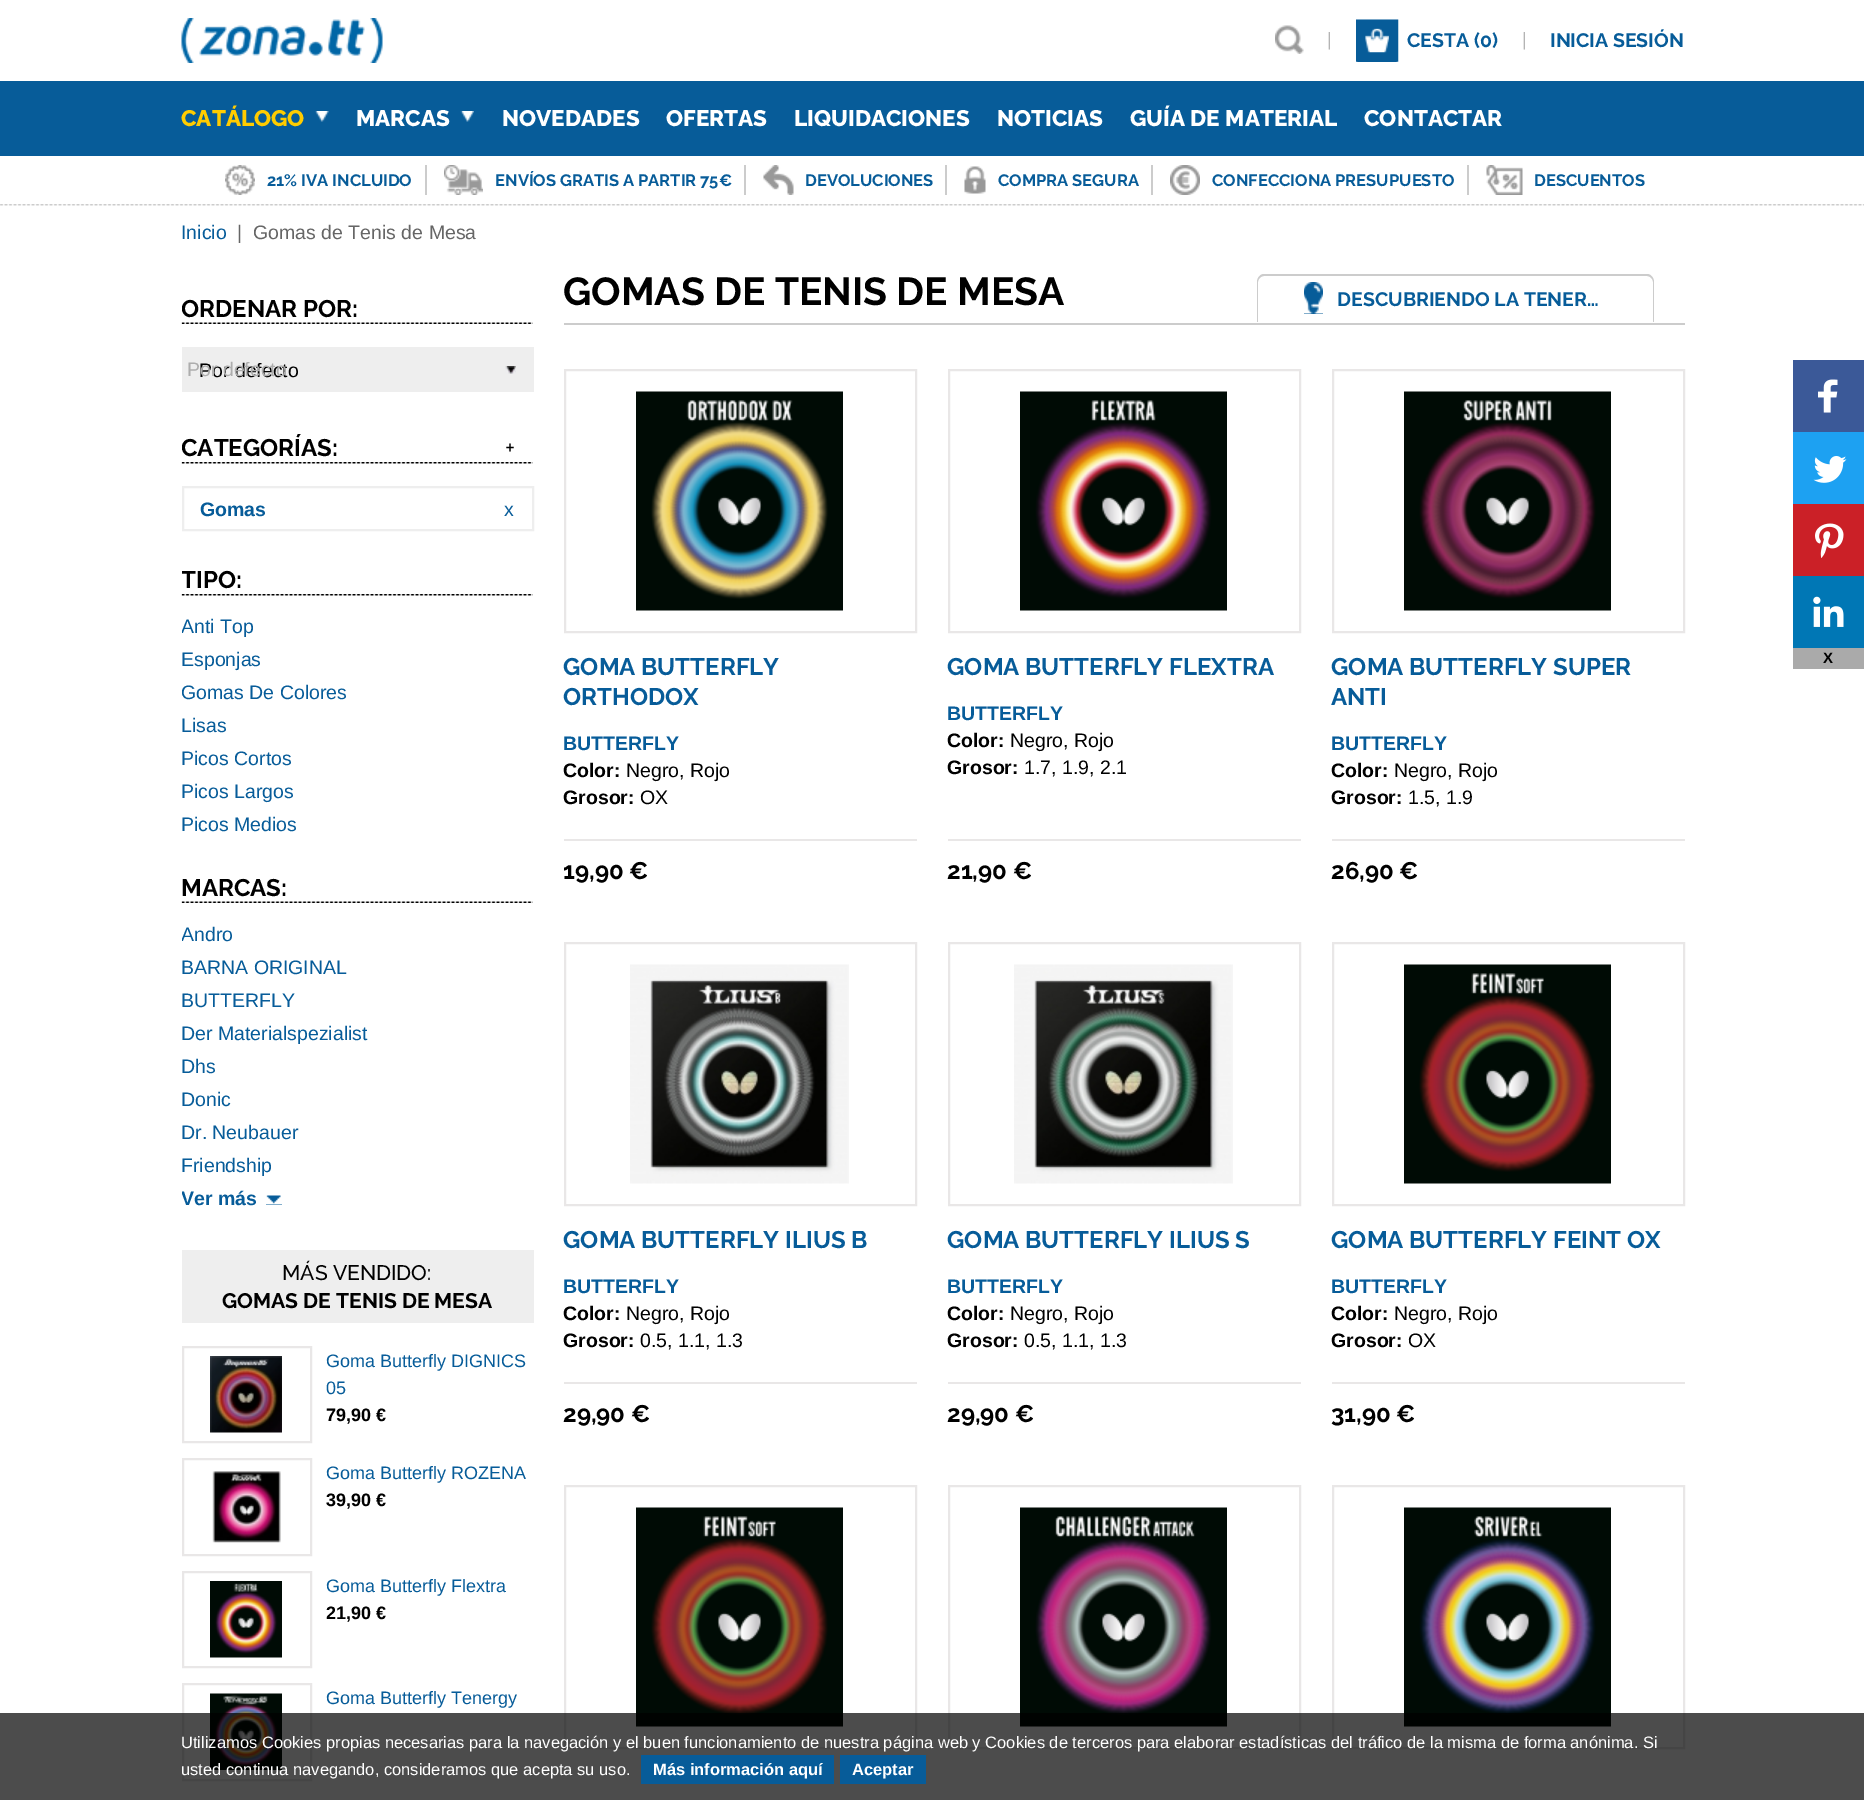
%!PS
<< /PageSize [1864 1800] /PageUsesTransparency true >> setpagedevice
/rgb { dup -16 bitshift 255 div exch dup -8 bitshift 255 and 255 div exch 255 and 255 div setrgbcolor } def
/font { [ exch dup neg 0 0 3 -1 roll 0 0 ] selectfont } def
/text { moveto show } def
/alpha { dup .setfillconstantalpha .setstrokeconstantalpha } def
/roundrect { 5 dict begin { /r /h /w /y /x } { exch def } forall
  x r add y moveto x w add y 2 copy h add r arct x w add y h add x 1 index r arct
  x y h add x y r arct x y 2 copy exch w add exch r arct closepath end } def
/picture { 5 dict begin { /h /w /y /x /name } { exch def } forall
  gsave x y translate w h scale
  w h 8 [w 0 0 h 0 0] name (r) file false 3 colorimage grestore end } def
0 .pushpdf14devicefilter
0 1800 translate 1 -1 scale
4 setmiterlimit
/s1 { /Raleway-Regular 19.5 font 16#999999 rgb } def
/s2 { /Raleway-Bold 19.5 font 16#075C99 rgb } def
/s3 { /Raleway-ExtraBold 22.5 font 16#FFCC00 rgb } def
/s4 { /Raleway-ExtraBold 22.5 font 16#FFFFFF rgb } def
/s5 { /Raleway-Bold 16.5 font 16#075C99 rgb } def
/s6 { /LiberationSans-Regular 19.5 font 16#075C99 rgb } def
/s7 { /LiberationSans-Regular 19.5 font 16#666666 rgb } def
/s8 { /Raleway-Bold 24 font 16#000000 rgb } def
/s9 { /LiberationSans-Regular 19.5 font 16#000000 rgb } def
/s10 { /LiberationSans-Regular 19.5 font 16#ADADAD rgb } def
/s11 { /Raleway-Regular 24 font 16#000000 rgb } def
/s12 { /LiberationSans-Bold 19.5 font 16#075C99 rgb } def
/s13 { /Raleway-Medium 21 font 16#000000 rgb } def
/s14 { /Raleway-Bold 21 font 16#000000 rgb } def
/s15 { /LiberationSans-Regular 18 font 16#075C99 rgb } def
/s16 { /LiberationSans-Bold 18 font 16#000000 rgb } def
/s17 { /Raleway-Bold 39 font 16#000000 rgb } def
/s18 { /Raleway-Bold 24 font 16#075C99 rgb } def
/s19 { /LiberationSans-Bold 19.5 font 16#000000 rgb } def
/s20 { /LiberationSans-Bold 15 font 16#000000 rgb } def
/s21 { /LiberationSans-Regular 16.5 font 16#FFFFFF rgb } def
/s22 { /LiberationSans-Bold 16.5 font 16#FFFFFF rgb } def
16#FFFFFF rgb
0 0 1864 1800 rectfill
(pic1.raw) 181 18 202 45 picture
(pic2.raw) 1275 25 29 29 picture
s1
(|) 1327 47 text
16#075C99 rgb
1356 20 42 42 3 roundrect fill
(pic3.raw) 1365 28 24 25 picture
9 setlinewidth
1360.5 24 moveto 1393.5 24 lineto 1393.5 57 lineto 1360.5 57 lineto closepath stroke
s2
(CESTA \(0\)) 1407 47 text
s1
(|) 1522 47 text
s2
(INICIA SESIÓN) 1550 47 text
(pic4.raw) 0 204 1864 2 picture
0 81 1864 75 rectfill
s3
(CATÁLOGO) 181 126 text
(pic5.raw) 315 111 14 11 picture
s4
(MARCAS) 356 126 text
(pic6.raw) 460 111 14 11 picture
(NOVEDADES) 502 126 text
(OFERTAS) 666 126 text
(LIQUIDACIONES) 794 126 text
(NOTICIAS) 997 126 text
(GUÍA DE MATERIAL) 1130 126 text
(CONTACTAR) 1364 126 text
(pic7.raw) 225 165 30 30 picture
s5
(21% IVA INCLUIDO) 267 186 text
16#CCCCCC rgb
425 165 2 30 rectfill
(pic8.raw) 444 165 39 30 picture
s5
(ENVÍOS GRATIS A PARTIR 75€) 495 186 text
16#CCCCCC rgb
744 165 2 30 rectfill
(pic9.raw) 763 165 31 30 picture
s5
(DEVOLUCIONES) 805 186 text
16#CCCCCC rgb
945 165 2 30 rectfill
(pic10.raw) 964 166 22 28 picture
s5
(COMPRA SEGURA) 998 186 text
16#CCCCCC rgb
1151 165 2 30 rectfill
(pic11.raw) 1170 165 30 30 picture
s5
(CONFECCIONA PRESUPUESTO) 1212 186 text
16#CCCCCC rgb
1467 165 2 30 rectfill
(pic12.raw) 1486 165 37 30 picture
s5
(DESCUENTOS) 1534 186 text
s6
(Inicio) 181 239 text
s7
(|) 237 239 text
(Gomas de Tenis de Mesa) 253 239 text
(pic13.raw) 181 322 352 2 picture
gsave
182 258 1503 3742 rectclip
s8
(ORDENAR POR:) 181 317 text
grestore
16#EEEEEE rgb
182 347 352 45 rectfill
s9
(Por defecto) 199 377 text
s10
(Por defecto) 187 376 text
(pic14.raw) 505 366 11 8 picture
(pic15.raw) 181 462 352 2 picture
gsave
182 258 1503 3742 rectclip
s8
(CATEGORÍAS:) 181 456 text
grestore
s11
(+) 505 456 text
16#EEEEEE rgb
2 setlinewidth
183 487 350 43 rectstroke
s12
(Gomas) 200 516 text
s6
(x) 504 516 text
(pic15.raw) 181 594 352 2 picture
gsave
182 258 1503 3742 rectclip
s8
(TIPO:) 181 588 text
s6
(Anti Top) 181 633 text
grestore
(Esponjas) 181 666 text
gsave
182 258 1503 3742 rectclip
(Gomas De Colores) 181 699 text
grestore
(Lisas) 181 732 text
(Picos Cortos) 181 765 text
(Picos Largos) 181 798 text
(Picos Medios) 181 831 text
(pic13.raw) 181 901 352 2 picture
s8
(MARCAS:) 181 896 text
gsave
182 258 1503 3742 rectclip
s6
(Andro) 181 941 text
grestore
s6
(BARNA ORIGINAL) 181 974 text
(BUTTERFLY) 181 1007 text
(Der Materialspezialist) 181 1040 text
(Dhs) 181 1073 text
(Donic) 181 1106 text
(Dr. Neubauer) 181 1139 text
(Friendship) 181 1172 text
gsave
182 258 1503 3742 rectclip
s12
(Ver más) 181 1205 text
grestore
266 1195 16 10 rectfill
(pic16.raw) 266 1194 16 11 picture
16#EEEEEE rgb
182 1250 352 73 rectfill
s13
(MÁS VENDIDO:) 282 1280 text
s14
(GOMAS DE TENIS DE MESA) 222 1308 text
16#E9E7E7 rgb
183 1347 128 95 rectstroke
(pic17.raw) 210 1356 72 77 picture
s15
(Goma Butterfly DIGNICS) 326 1367 text
(05) 326 1394 text
s16
(79,90 €) 326 1421 text
16#E9E7E7 rgb
183 1459 128 96 rectstroke
(pic18.raw) 212 1471 69 72 picture
s15
(Goma Butterfly ROZENA) 326 1479 text
s16
(39,90 €) 326 1506 text
16#E9E7E7 rgb
183 1572 128 95 rectstroke
(pic19.raw) 210 1581 72 77 picture
s15
(Goma Butterfly Flextra) 326 1592 text
s16
(21,90 €) 326 1619 text
16#E9E7E7 rgb
183 1684 128 96 rectstroke
(pic20.raw) 210 1693 72 77 picture
s15
(Goma Butterfly Tenergy) 326 1704 text
16#CCCCCC rgb
564 323 1121 2 rectfill
s17
(GOMAS DE TENIS DE MESA) 563 305 text
16#CCCCCC rgb
1264 274 moveto 1647 274 lineto 1651 274 1654 278 1654 282 curveto 1654 322 lineto 1257 322 lineto 1257 282 lineto 1257 278 1260 274 1264 274 curveto closepath 1264 276 moveto 1647 276 lineto 1650 276 1653 279 1653 282 curveto 1653 322 lineto 1258 322 lineto 1258 282 lineto 1258 279 1261 276 1264 276 curveto closepath eofill
16#075C99 rgb
1304 282 19 32 rectfill
(pic21.raw) 1304 282 19 32 picture
s2
(DESCUBRIENDO LA TENER…) 1337 306 text
16#E9E7E7 rgb
565 370 351 262 rectstroke
(pic22.raw) 636 391 207 220 picture
s18
(GOMA BUTTERFLY) 563 675 text
(ORTHODOX) 563 705 text
s12
(BUTTERFLY) 563 750 text
s19
(Color:) 563 777 text
s9
(Negro, Rojo) 626 777 text
s19
(Grosor:) 563 804 text
s9
(OX) 640 804 text
16#E9E7E7 rgb
564 839 353 2 rectfill
s8
(19,90 €) 563 879 text
16#E9E7E7 rgb
949 370 351 262 rectstroke
(pic23.raw) 1020 391 207 220 picture
s18
(GOMA BUTTERFLY FLEXTRA) 947 675 text
s12
(BUTTERFLY) 947 720 text
s19
(Color:) 947 747 text
s9
(Negro, Rojo) 1010 747 text
s19
(Grosor:) 947 774 text
s9
(1.7, 1.9, 2.1) 1024 774 text
16#E9E7E7 rgb
948 839 353 2 rectfill
s8
(21,90 €) 947 879 text
16#E9E7E7 rgb
1333 370 351 262 rectstroke
(pic24.raw) 1404 391 207 220 picture
s18
(GOMA BUTTERFLY SUPER) 1331 675 text
(ANTI) 1331 705 text
s12
(BUTTERFLY) 1331 750 text
s19
(Color:) 1331 777 text
s9
(Negro, Rojo) 1394 777 text
s19
(Grosor:) 1331 804 text
s9
(1.5, 1.9) 1408 804 text
16#E9E7E7 rgb
1332 839 353 2 rectfill
s8
(26,90 €) 1331 879 text
16#E9E7E7 rgb
565 943 351 262 rectstroke
(pic25.raw) 630 964 219 220 picture
s18
(GOMA BUTTERFLY ILIUS B) 563 1248 text
s12
(BUTTERFLY) 563 1293 text
s19
(Color:) 563 1320 text
s9
(Negro, Rojo) 626 1320 text
s19
(Grosor:) 563 1347 text
s9
(0.5, 1.1, 1.3) 640 1347 text
16#E9E7E7 rgb
564 1382 353 2 rectfill
s8
(29,90 €) 563 1422 text
16#E9E7E7 rgb
949 943 351 262 rectstroke
(pic26.raw) 1014 964 219 220 picture
s18
(GOMA BUTTERFLY ILIUS S) 947 1248 text
s12
(BUTTERFLY) 947 1293 text
s19
(Color:) 947 1320 text
s9
(Negro, Rojo) 1010 1320 text
s19
(Grosor:) 947 1347 text
s9
(0.5, 1.1, 1.3) 1024 1347 text
16#E9E7E7 rgb
948 1382 353 2 rectfill
s8
(29,90 €) 947 1422 text
16#E9E7E7 rgb
1333 943 351 262 rectstroke
(pic27.raw) 1404 964 207 220 picture
s18
(GOMA BUTTERFLY FEINT OX) 1331 1248 text
s12
(BUTTERFLY) 1331 1293 text
s19
(Color:) 1331 1320 text
s9
(Negro, Rojo) 1394 1320 text
s19
(Grosor:) 1331 1347 text
s9
(OX) 1408 1347 text
16#E9E7E7 rgb
1332 1382 353 2 rectfill
s8
(31,90 €) 1331 1422 text
16#E9E7E7 rgb
565 1486 351 262 rectstroke
(pic27.raw) 636 1507 207 220 picture
949 1486 351 262 rectstroke
(pic28.raw) 1020 1507 207 220 picture
1333 1486 351 262 rectstroke
(pic29.raw) 1404 1507 207 220 picture
16#3B5998 rgb
1793 360 71 72 rectfill
(pic30.raw) 1818 379 20 34 picture
16#1DA1F2 rgb
1793 432 71 72 rectfill
(pic31.raw) 1813 456 34 27 picture
16#CB2027 rgb
1793 504 71 72 rectfill
(pic32.raw) 1815 523 29 35 picture
16#0077B5 rgb
1793 576 71 72 rectfill
(pic33.raw) 1813 596 31 31 picture
16#AAAAAA rgb
1793 648 71 21 rectfill
s20
(X) 1823 663 text
0.7 alpha
0 1713 1864 87 rectfill
1 alpha
s21
(Utilizamos Cookies propias necesarias para la navegación y el buen funcionamiento de nuestra página web y Cookies de terceros para elaborar estadísticas del tráfico de la misma de forma anónima. Si) 181 1748 text
(usted continua navegando, consideramos que acepta su uso.) 181 1775 text
16#075C99 rgb
641 1755 193 29 rectfill
s22
(Más información aquí) 653 1775 text
16#075C99 rgb
840 1755 86 29 rectfill
s22
(Aceptar) 852 1775 text
.poppdf14devicefilter showpage
